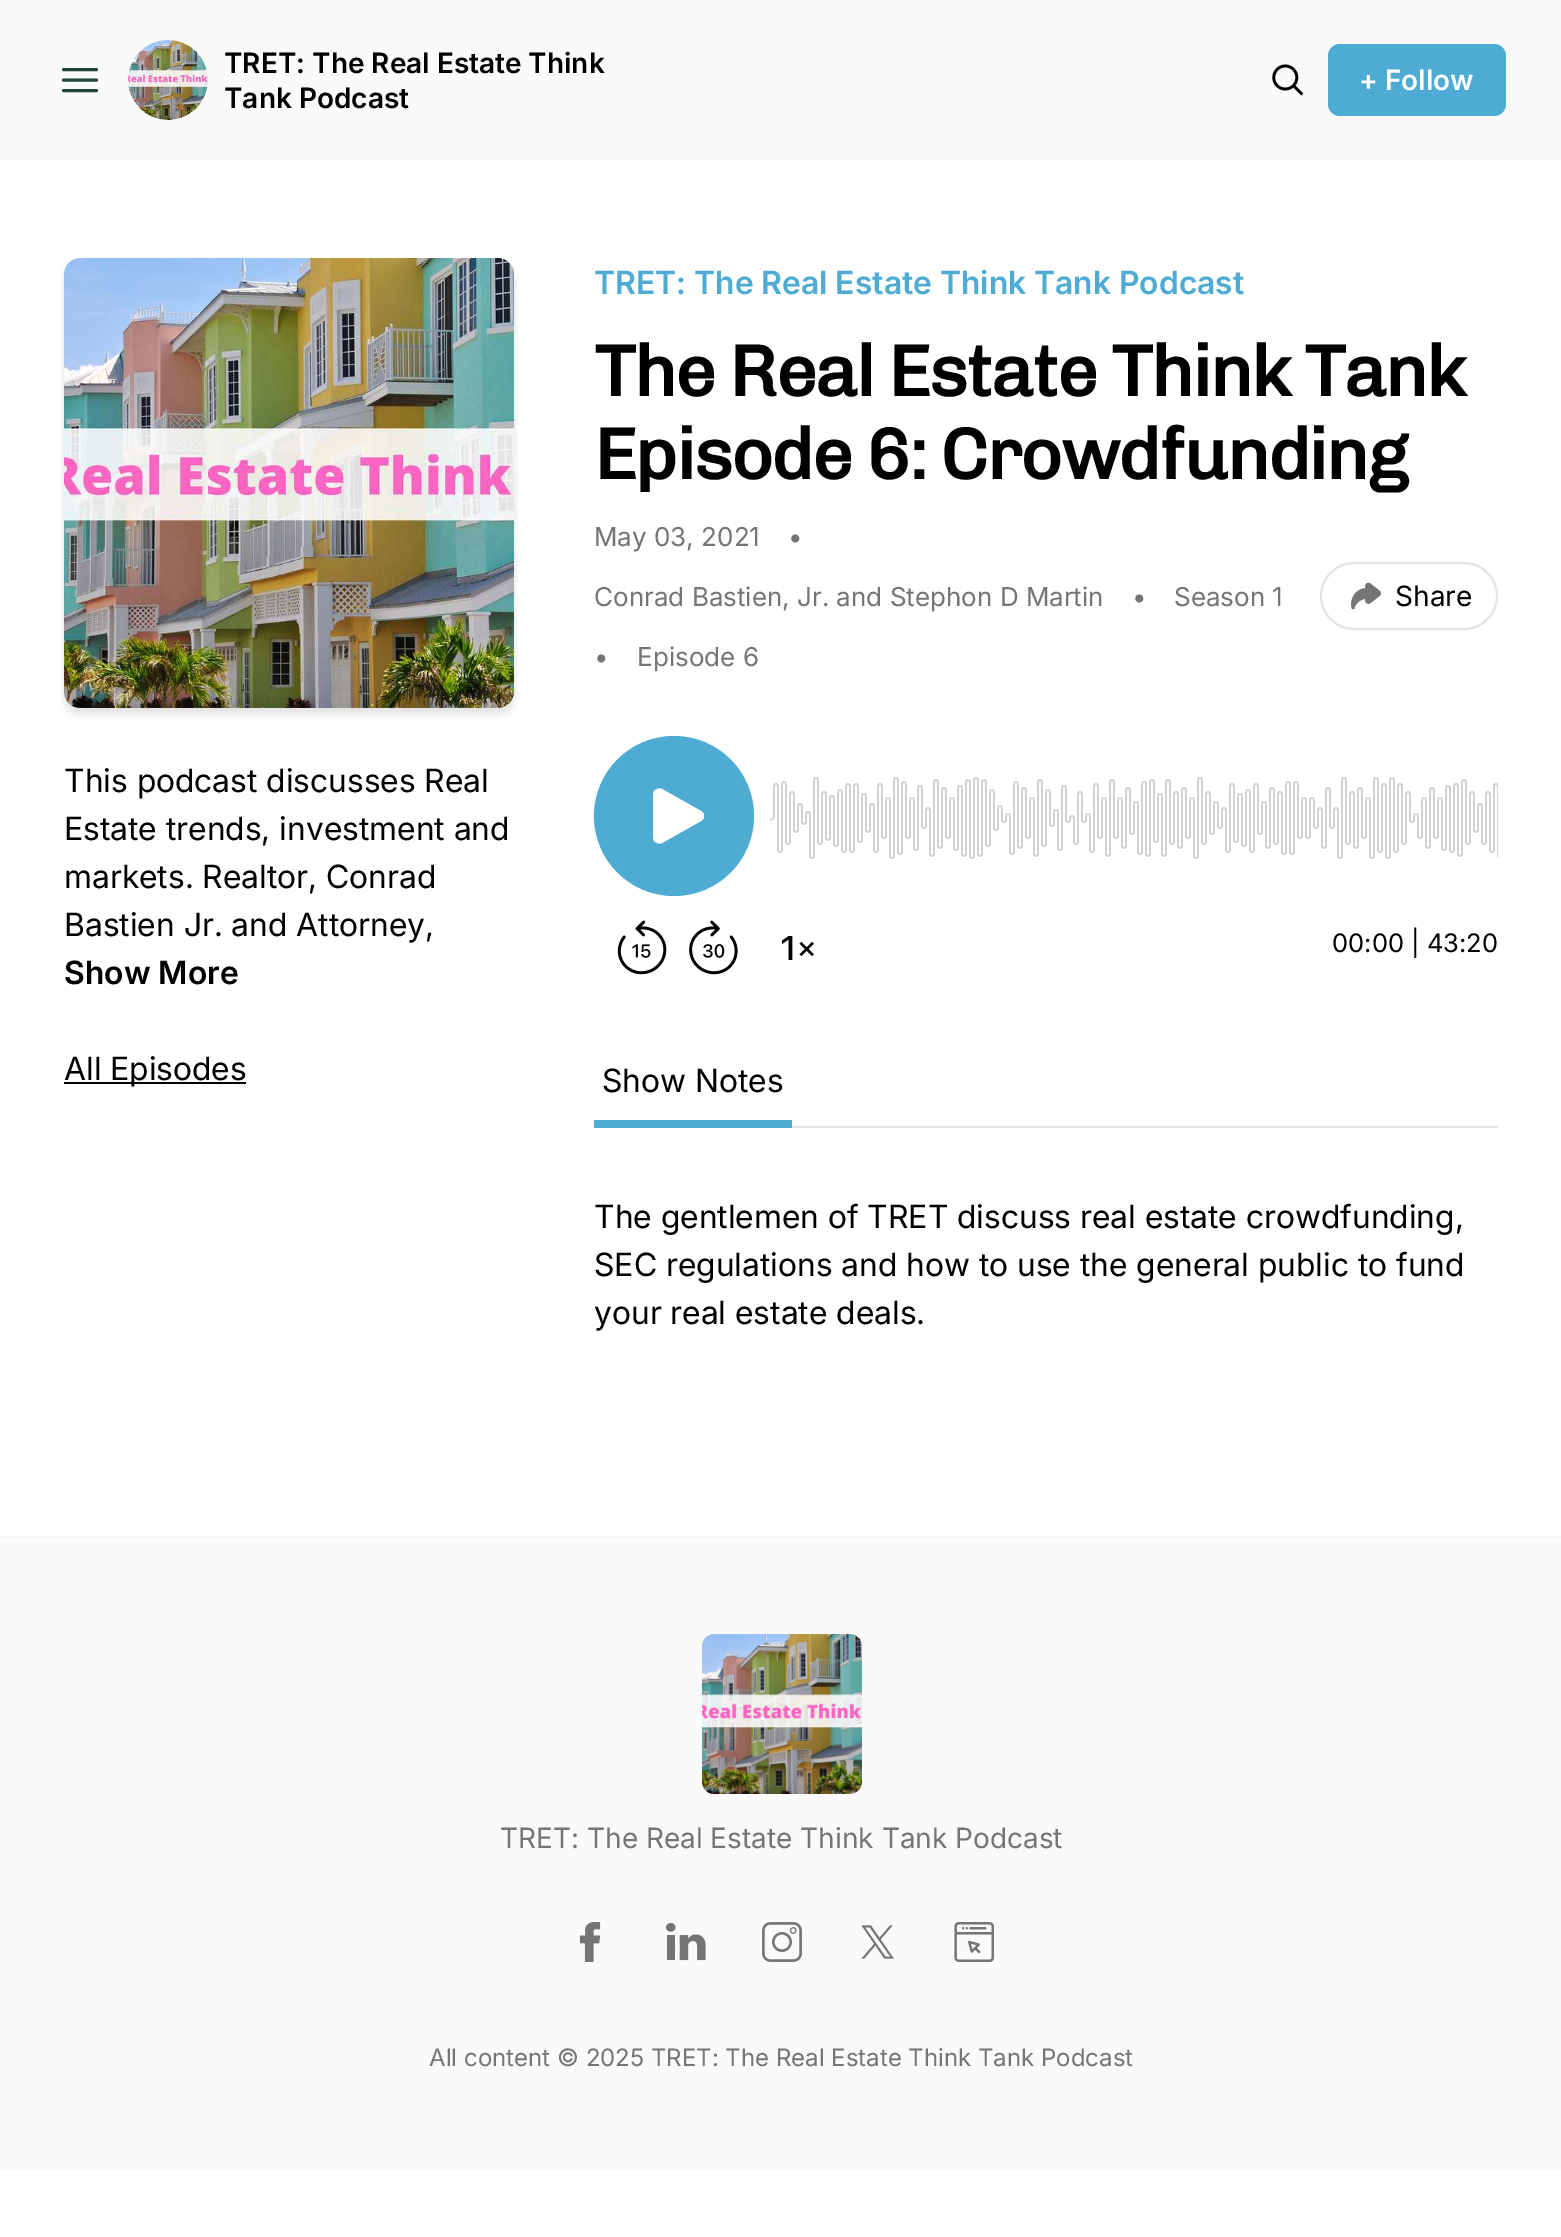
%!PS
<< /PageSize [1561 2237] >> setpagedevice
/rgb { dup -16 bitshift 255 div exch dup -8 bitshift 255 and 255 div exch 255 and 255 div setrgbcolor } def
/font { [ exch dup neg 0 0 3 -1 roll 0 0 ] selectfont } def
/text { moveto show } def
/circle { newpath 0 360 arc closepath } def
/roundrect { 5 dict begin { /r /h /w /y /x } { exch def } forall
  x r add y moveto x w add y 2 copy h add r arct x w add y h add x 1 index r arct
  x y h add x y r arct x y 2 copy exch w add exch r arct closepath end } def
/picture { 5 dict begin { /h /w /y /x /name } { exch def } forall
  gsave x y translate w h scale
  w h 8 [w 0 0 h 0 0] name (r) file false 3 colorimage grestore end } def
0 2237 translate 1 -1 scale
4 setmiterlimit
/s1 { /Inter-SemiBold 28 font 16#000000 rgb } def
/s2 { /Inter-SemiBold 28 font 16#FFFFFF rgb } def
/s3 { /Inter-Regular 32 font 16#000000 rgb } def
/s4 { /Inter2-SemiBold 32 font 16#000000 rgb } def
/s5 { /Inter2-SemiBold 32 font 16#4EACD4 rgb } def
/s6 { /Inter2-Regular 26 font 16#747576 rgb } def
/s7 { /Inter2-Regular 28 font 16#000000 rgb } def
/s8 { /Inter2-Regular 25.5 font 16#000000 rgb } def
/s9 { /Inter2-Regular 28 font 16#747576 rgb } def
/s10 { /Inter2-Regular 24 font 16#747576 rgb } def
16#FFFFFF rgb
0 0 1561 2237 rectfill
16#FAFAFA rgb
0 0 1561 160 rectfill
16#214538 rgb
3 setlinewidth
1 setlinecap
1 setlinejoin
63.5 69.5 moveto 96.5 69.5 lineto 63.5 80 moveto 96.5 80 lineto 63.5 90.5 moveto 96.5 90.5 lineto stroke
(pic1.raw) 128 40 80 80 picture
s1
(TRET: The Real Estate Think) 224 73 text
(Tank Podcast) 224 108 text
(pic2.raw) 1272 64 32 32 picture
16#4EACD4 rgb
1328 44 178 72 12 roundrect fill
s2
(+ Follow) 1359 90 text
(pic3.raw) 60 258 458 461 picture
s3
(This podcast discusses Real) 64 792 text
(Estate trends, investment and) 64 840 text
(markets. Realtor, Conrad) 64 888 text
(Bastien Jr. and Attorney,) 64 936 text
s4
(Show More) 64 984 text
64 1082 182 2 rectfill
s3
(All Episodes) 64 1080 text
s5
(TRET: The Real Estate Think Tank Podcast) 594 294 text
/Chivo-Bold 72 font
16#000000 rgb
594 396 moveto -1.8 0 (The Real Estate Think Tank) ashow
594 479 moveto -1.8 0 (Episode 6: Crowdfunding) ashow
s6
(May 03, 2021) 594 546 text
(•) 788 546 text
(Conrad Bastien, Jr. and Stephon D Martin) 594 606 text
(•) 1132 606 text
(Season 1) 1174 606 text
(•) 594 666 text
(Episode 6) 637 666 text
16#E4E5E6 rgb
2 setlinewidth
0 setlinecap
0 setlinejoin
1321 563 176 66 33 roundrect stroke
(pic4.raw) 1351 582 30 28 picture
s7
(Share) 1395 606 text
(pic5.raw) 617 920 50 55 picture
(pic6.raw) 689 920 49 55 picture
(pic7.raw) 782 936 32 24 picture
16#4EACD4 rgb
674 816 80 circle fill
16#FFFFFF rgb
653 795 moveto 653 790 658 787 662 789 curveto 701 811 lineto 705 813 705 819 701 821 curveto 662 843 lineto 658 845 653 842 653 837 curveto closepath eofill
(pic8.raw) 770 777 728 82 picture
s8
(00:00 | 43:20) 1332 952 text
16#E4E5E6 rgb
792 1126 706 2 rectfill
16#4EACD4 rgb
594 1120 198 8 rectfill
s3
(Show Notes) 602 1092 text
(The gentlemen of TRET discuss real estate crowdfunding,) 594 1228 text
(SEC regulations and how to use the general public to fund) 594 1276 text
(your real estate deals.) 594 1324 text
16#FAFAFA rgb
0 1538 1561 632 rectfill
16#F4F4F4 rgb
0 1536 1561 2 rectfill
(pic9.raw) 702 1634 160 160 picture
s9
(TRET: The Real Estate Think Tank Podcast) 500 1848 text
(pic10.raw) 579 1922 22 40 picture
(pic11.raw) 666 1923 40 38 picture
(pic12.raw) 762 1922 40 40 picture
(pic13.raw) 861 1925 33 34 picture
(pic14.raw) 954 1922 40 40 picture
s10
(All content © 2025 TRET: The Real Estate Think Tank Podcast) 429 2066 text
showpage
